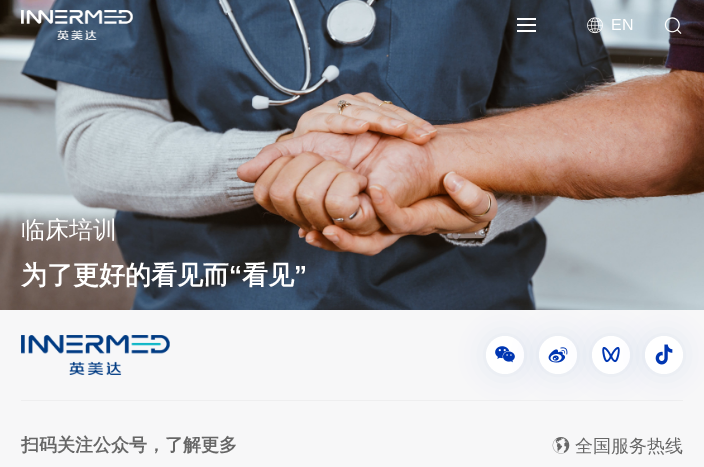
%!PS
<< /PageSize [704 467] /PageUsesTransparency true >> setpagedevice
/rgb { dup -16 bitshift 255 div exch dup -8 bitshift 255 and 255 div exch 255 and 255 div setrgbcolor } def
/font { [ exch dup neg 0 0 3 -1 roll 0 0 ] selectfont } def
/text { moveto show } def
/alpha { dup .setfillconstantalpha .setstrokeconstantalpha } def
/circle { newpath 0 360 arc closepath } def
/roundrect { 5 dict begin { /r /h /w /y /x } { exch def } forall
  x r add y moveto x w add y 2 copy h add r arct x w add y h add x 1 index r arct
  x y h add x y r arct x y 2 copy exch w add exch r arct closepath end } def
/shadow { 12 dict begin { /a /b /q /h /w /y /x } { exch def } forall gsave /was 0 def
  9 -2 -9 { dup b mul 4 div /e exch def 1 sub .425 mul 2.718 exch exp 1 add a .99 .min exch div /now exch def
    1 1 now sub 1 was sub div sub alpha /was now def
    w h .min e 2 mul add 0 gt { x e sub y e sub w e 2 mul add h e 2 mul add
      q e add b .6 mul add w h .min 2 div e add .min 0 .max roundrect fill } if } for grestore end } def
/picture { 5 dict begin { /h /w /y /x /name } { exch def } forall
  gsave x y translate w h scale
  w h 8 [w 0 0 h 0 0] name (r) file false 3 colorimage grestore end } def
0 .pushpdf14devicefilter
0 467 translate 1 -1 scale
4 setmiterlimit
/s1 { /LiberationSans-Regular 16 font 16#FFFFFF rgb } def
/s2 { /WenQuanYiZenHei-Medium 24 font 16#FFFFFF rgb } def
/s3 { /WenQuanYiZenHei-Bold 26 font 16#FFFFFF rgb } def
/s4 { /LiberationSans-Bold 26 font 16#FFFFFF rgb } def
/s5 { /WenQuanYiZenHei-Bold 18 font 16#666666 rgb } def
/s6 { /WenQuanYiZenHei-Medium 18 font 16#666666 rgb } def
16#F7F7F8 rgb
0 0 704 467 rectfill
16#EEEEEF rgb
21 400 662 1 rectfill
16#003B83 rgb
486 336 38 38 19 12.5 0.08 shadow
16#FFFFFF rgb
505 355 19 circle fill
(pic6.raw) 495 346 20 17 picture
16#003B83 rgb
539 336 38 38 19 12.5 0.08 shadow
16#FFFFFF rgb
558 355 19 circle fill
(pic7.raw) 548 347 20 16 picture
16#003B83 rgb
592 336 38 38 19 12.5 0.08 shadow
16#FFFFFF rgb
611 355 19 circle fill
(pic8.raw) 602 347 18 16 picture
16#003B83 rgb
645 336 38 38 19 12.5 0.08 shadow
(pic4.raw) 0 0 704 310 picture
(pic1.raw) 21 10 112 30 picture
16#FFFFFF rgb
517 24 19 2 rectfill
517 18 19 2 rectfill
517 30 19 2 rectfill
(pic2.raw) 587 17 16 17 picture
s1
(EN) 611 30 text
(pic3.raw) 664 17 18 17 picture
s2
(临床培训) 21 238 text
s3
(为了更好的看见而) 21 284 text
s4
(“) 229 284 text
s3
(看见) 242 284 text
s4
(”) 294 284 text
(pic5.raw) 21 335 149 40 picture
664 355 19 circle fill
(pic9.raw) 655 344 18 21 picture
s5
(扫码关注公众号，了解更多) 21 451 text
(pic10.raw) 552 437 18 17 picture
s6
(全国服务热线) 575 452 text
.poppdf14devicefilter showpage
